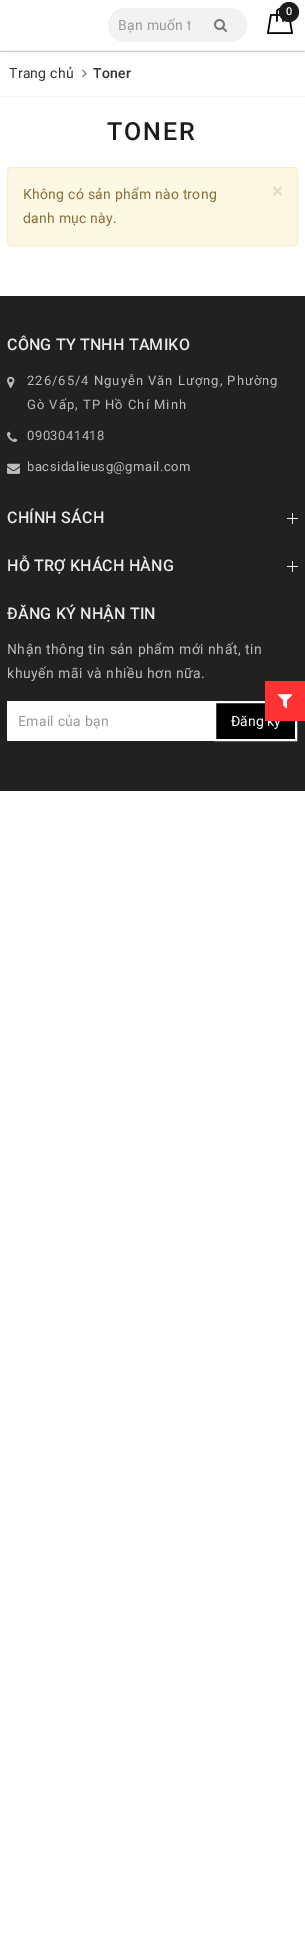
%!PS
<< /PageSize [305 1945] /PageUsesTransparency true >> setpagedevice
/rgb { dup -16 bitshift 255 div exch dup -8 bitshift 255 and 255 div exch 255 and 255 div setrgbcolor } def
/font { [ exch dup neg 0 0 3 -1 roll 0 0 ] selectfont } def
/text { moveto show } def
/alpha { dup .setfillconstantalpha .setstrokeconstantalpha } def
/circle { newpath 0 360 arc closepath } def
/roundrect { 5 dict begin { /r /h /w /y /x } { exch def } forall
  x r add y moveto x w add y 2 copy h add r arct x w add y h add x 1 index r arct
  x y h add x y r arct x y 2 copy exch w add exch r arct closepath end } def
/shadow { 12 dict begin { /a /b /q /h /w /y /x } { exch def } forall gsave /was 0 def
  9 -2 -9 { dup b mul 4 div /e exch def 1 sub .425 mul 2.718 exch exp 1 add a .99 .min exch div /now exch def
    1 1 now sub 1 was sub div sub alpha /was now def
    w h .min e 2 mul add 0 gt { x e sub y e sub w e 2 mul add h e 2 mul add
      q e add b .6 mul add w h .min 2 div e add .min 0 .max roundrect fill } if } for grestore end } def
/picture { 5 dict begin { /h /w /y /x /name } { exch def } forall
  gsave x y translate w h scale
  w h 8 [w 0 0 h 0 0] name (r) file false 3 colorimage grestore end } def
0 .pushpdf14devicefilter
0 1945 translate 1 -1 scale
4 setmiterlimit
/s1 { /Roboto-Regular 14 font 16#FFFFFF rgb } def
16#FFFFFF rgb
0 0 305 1945 rectfill
16#F5F5F5 rgb
0 51 305 1 rectfill
gsave
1 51 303 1 rectclip
16#000000 rgb
1 3 303 49 0 0.5 0.12 shadow
grestore
gsave
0 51 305 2 rectclip
16#000000 rgb
0 1 305 51 0 1.5 0.12 shadow
grestore
16#F2F2F2 rgb
0 50 305 1 rectfill
(pic1.raw) 267 8 26 26 picture
16#1C1C1C rgb
289 12 10 circle fill
/Roboto-Medium 11 font
16#FFFFFF rgb
286 15 moveto 0.25 0 (0) ashow
16#F2F2F2 rgb
108 8 139 34 17 roundrect fill
gsave
118 17 72 16 rectclip
/Roboto-Regular 14 font
16#999999 rgb
118 30 moveto 0.25 0 (Bạn muốn t) ashow
grestore
(pic2.raw) 214 19 13 13 picture
16#F5F5F5 rgb
0 96 305 1 rectfill
/Roboto-Regular 14 font
16#333333 rgb
9 78 moveto 0.25 0 (Trang chủ) ashow
(pic3.raw) 82 69 5 9 picture
/Roboto-Medium 14 font
93 78 moveto 0.25 0 (Toner) ashow
/Roboto-Medium 25 font
16#1C1C1C rgb
107 140 moveto 2 0 (TONER) ashow
16#FCF8E3 rgb
7.5 167.5 290 78 3.5 roundrect gsave fill grestore
16#FAEBCC rgb
stroke
/Roboto-Regular 14 font
16#8A6D3B rgb
23 199 moveto 0.25 0 (Không có sản phẩm nào trong) ashow
/Roboto-Bold 21 font
16#E5DCC1 rgb
272 198 moveto 0.25 0 (×) ashow
/Roboto-Regular 14 font
16#8A6D3B rgb
23 223 moveto 0.25 0 (danh mục này.) ashow
16#212121 rgb
0 296 305 495 rectfill
16#000000 rgb
215 702 moveto 296 702 lineto 296 740 lineto 215 740 lineto closepath gsave fill grestore
16#FFFFFF rgb
2 setlinewidth
stroke
(Đăng ký) 231 726 text
16#FF3333 rgb
265 681 40 40 rectfill
(pic4.raw) 278 694 15 15 picture
16#E9E9E9 rgb
287 566 11 1 rectfill
287 518 11 1 rectfill
/Roboto-Medium 16 font
7 350 moveto 0.2 0 (CÔNG TY TNHH TAMIKO) ashow
(pic5.raw) 7 376 8 12 picture
/Roboto-Regular 13 font
16#BCBCBC rgb
27 385 moveto 1 0 (226/65/4 Nguyễn Văn Lượng, Phường) ashow
27 409 moveto 1 0 (Gò Vấp, TP Hồ Chí Minh) ashow
(pic6.raw) 7 431 11 11 picture
27 440 moveto 0.5 0 (0903041418) ashow
(pic7.raw) 7 463 13 11 picture
27 471 moveto 0.5 0 (bacsidalieusg@gmail.com) ashow
/Roboto-Medium 16 font
16#E9E9E9 rgb
7 523 moveto 0.2 0 (CHÍNH SÁCH) ashow
292 513 1 11 rectfill
16#FDFDFD rgb
292 518 1 1 rectfill
16#E9E9E9 rgb
7 571 moveto 0.2 0 (HỖ TRỢ KHÁCH HÀNG) ashow
292 561 1 11 rectfill
16#FDFDFD rgb
292 566 1 1 rectfill
16#E9E9E9 rgb
7 619 moveto 0.2 0 (ĐĂNG KÝ NHẬN TIN) ashow
/Roboto-Regular 14 font
16#BCBCBC rgb
7 654 moveto 0.5 0 (Nhận thông tin sản phẩm mới nhất, tin) ashow
7 678 moveto 0.5 0 (khuyến mãi và nhiều hơn nữa.) ashow
16#FFFFFF rgb
7 701 207 40 rectfill
16#999999 rgb
18 726 moveto 0.25 0 (Email của bạn) ashow
.poppdf14devicefilter showpage
